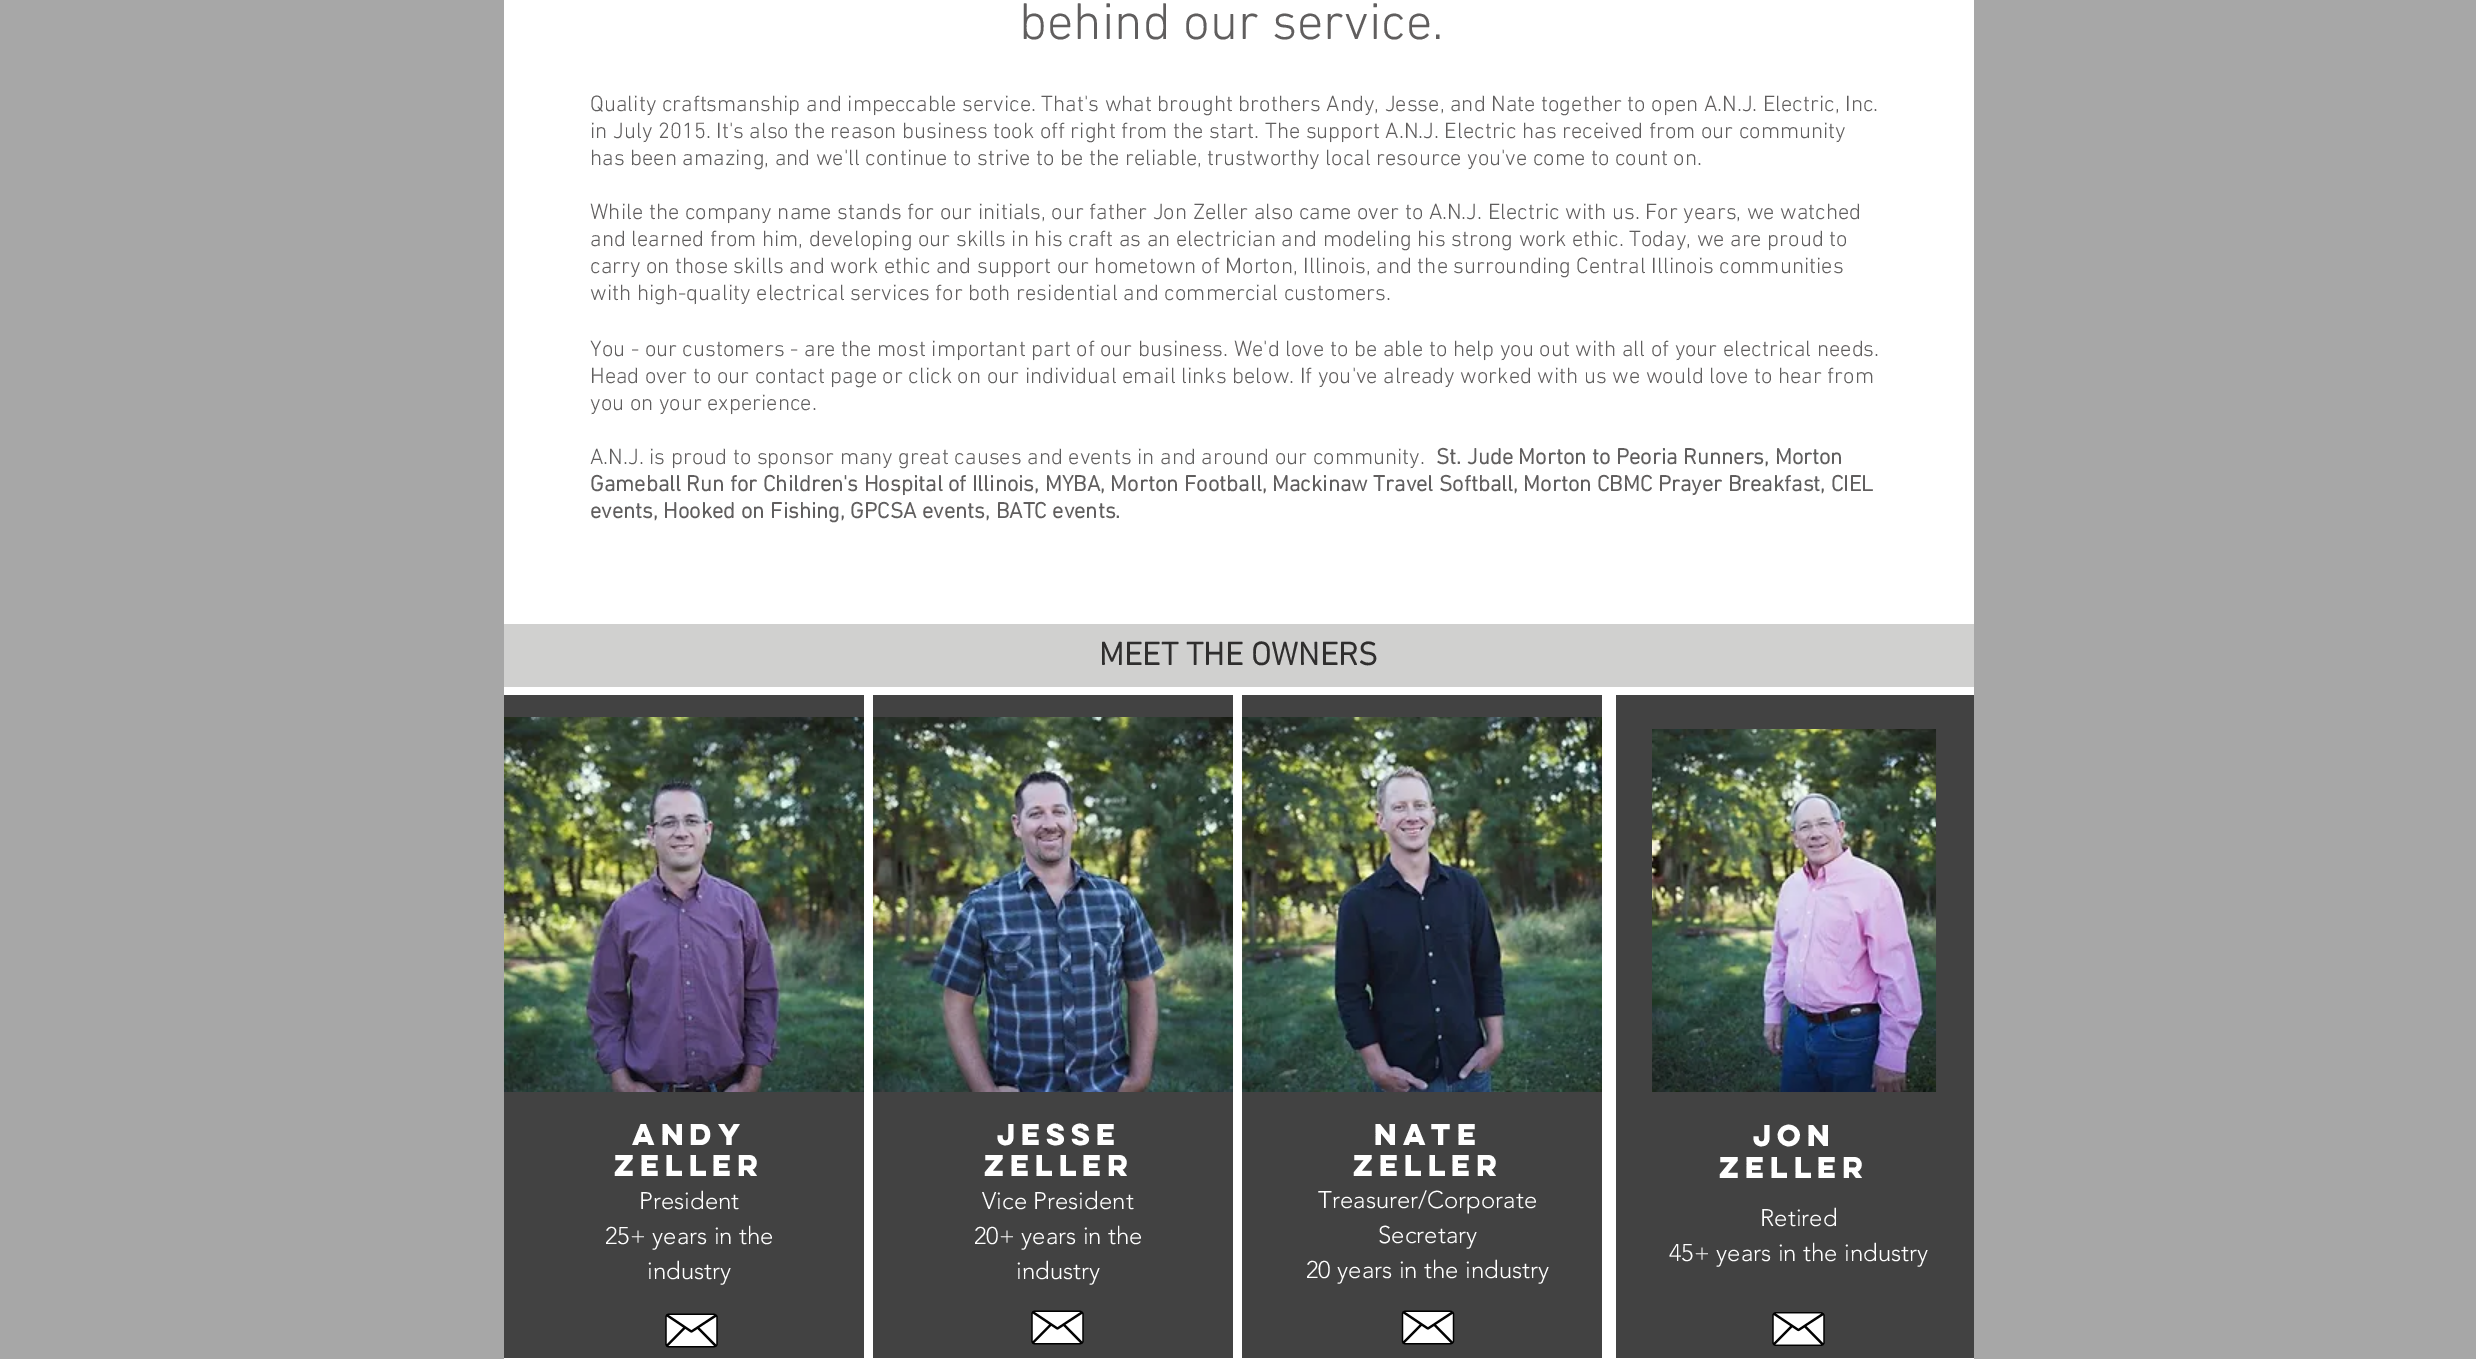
%!PS
<< /PageSize [2476 1359] >> setpagedevice
/rgb { dup -16 bitshift 255 div exch dup -8 bitshift 255 and 255 div exch 255 and 255 div setrgbcolor } def
/font { [ exch dup neg 0 0 3 -1 roll 0 0 ] selectfont } def
/text { moveto show } def
/picture { 5 dict begin { /h /w /y /x /name } { exch def } forall
  gsave x y translate w h scale
  w h 8 [w 0 0 h 0 0] name (r) file false 3 colorimage grestore end } def
0 1359 translate 1 -1 scale
4 setmiterlimit
/s1 { /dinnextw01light-Light 52.5 font 16#605E5E rgb } def
/s2 { /dinnextw01light-Light 22.5 font 16#605E5E rgb } def
/s3 { /dinnextw01light-Bold 22.5 font 16#605E5E rgb } def
/s4 { /dinnextw01light-Bold 33 font 16#2F2E2E rgb } def
/s5 { /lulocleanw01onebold-Bold 27 font 16#FFFFFF rgb } def
/s6 { /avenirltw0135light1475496-Light 24 font 16#FFFFFF rgb } def
16#A7A7A7 rgb
0 0 2476 1359 rectfill
16#FFFFFF rgb
504 0 1470 1359 rectfill
s1
(behind our service.) 1019 39 text
s2
(Quality craftsmanship and impeccable service. That's what brought brothers Andy, Jesse, and Nate together to open A.N.J. Electric, Inc.) 590 111 text
(in July 2015. It's also the reason business took off right from the start. The support A.N.J. Electric has received from our community) 590 138 text
(has been amazing, and we'll continue to strive to be the reliable, trustworthy local resource you've come to count on.) 590 165 text
(While the company name stands for our initials, our father Jon Zeller also came over to A.N.J. Electric with us. For years, we watched) 590 219 text
(and learned from him, developing our skills in his craft as an electrician and modeling his strong work ethic. Today, we are proud to) 590 246 text
(carry on those skills and work ethic and support our hometown of Morton, Illinois, and the surrounding Central Illinois communities) 590 273 text
(with high-quality electrical services for both residential and commercial customers.) 590 300 text
(You - our customers - are the most important part of our business. We'd love to be able to help you out with all of your electrical needs.) 590 356 text
(Head over to our contact page or click on our individual email links below. If you've already worked with us we would love to hear from) 590 383 text
(you on your experience.) 590 410 text
(A.N.J. is proud to sponsor many great causes and events in and around our community.) 590 464 text
s3
(St. Jude Morton to Peoria Runners, Morton) 1436 464 text
(Gameball Run for Children's Hospital of Illinois, MYBA, Morton Football, Mackinaw Travel Softball, Morton CBMC Prayer Breakfast, CIEL) 590 491 text
(events, Hooked on Fishing, GPCSA events, BATC events.) 590 518 text
16#D0D0CF rgb
504 624 1470 63 rectfill
s4
(MEET THE OWNERS) 1099 665 text
16#424242 rgb
504 695 360 663 rectfill
(pic1.raw) 504 717 360 375 picture
s5
(andy) 632 1145 text
(zeller) 614 1176 text
s6
(President) 639 1209 text
(25+ years in the) 605 1244 text
(industry) 647 1279 text
(pic2.raw) 665 1313 53 35 picture
16#424242 rgb
873 695 360 663 rectfill
(pic3.raw) 873 717 360 375 picture
s5
(Jesse) 997 1145 text
(zeller) 984 1176 text
s6
(Vice President) 982 1209 text
(20+ years in the) 974 1244 text
(industry) 1016 1279 text
(pic2.raw) 1031 1310 53 35 picture
16#424242 rgb
1242 695 360 663 rectfill
(pic4.raw) 1242 717 360 375 picture
s5
(nate) 1374 1145 text
(zeller) 1353 1176 text
s6
(Treasurer/Corporate) 1318 1208 text
(Secretary) 1378 1243 text
(20 years in the industry) 1306 1278 text
(pic5.raw) 1401 1310 54 35 picture
16#424242 rgb
1616 695 358 663 rectfill
(pic6.raw) 1652 729 285 363 picture
s5
(JON) 1753 1146 text
(zeller) 1719 1178 text
s6
(Retired) 1760 1226 text
(45+ years in the industry) 1669 1261 text
(pic7.raw) 1772 1312 53 34 picture
showpage
